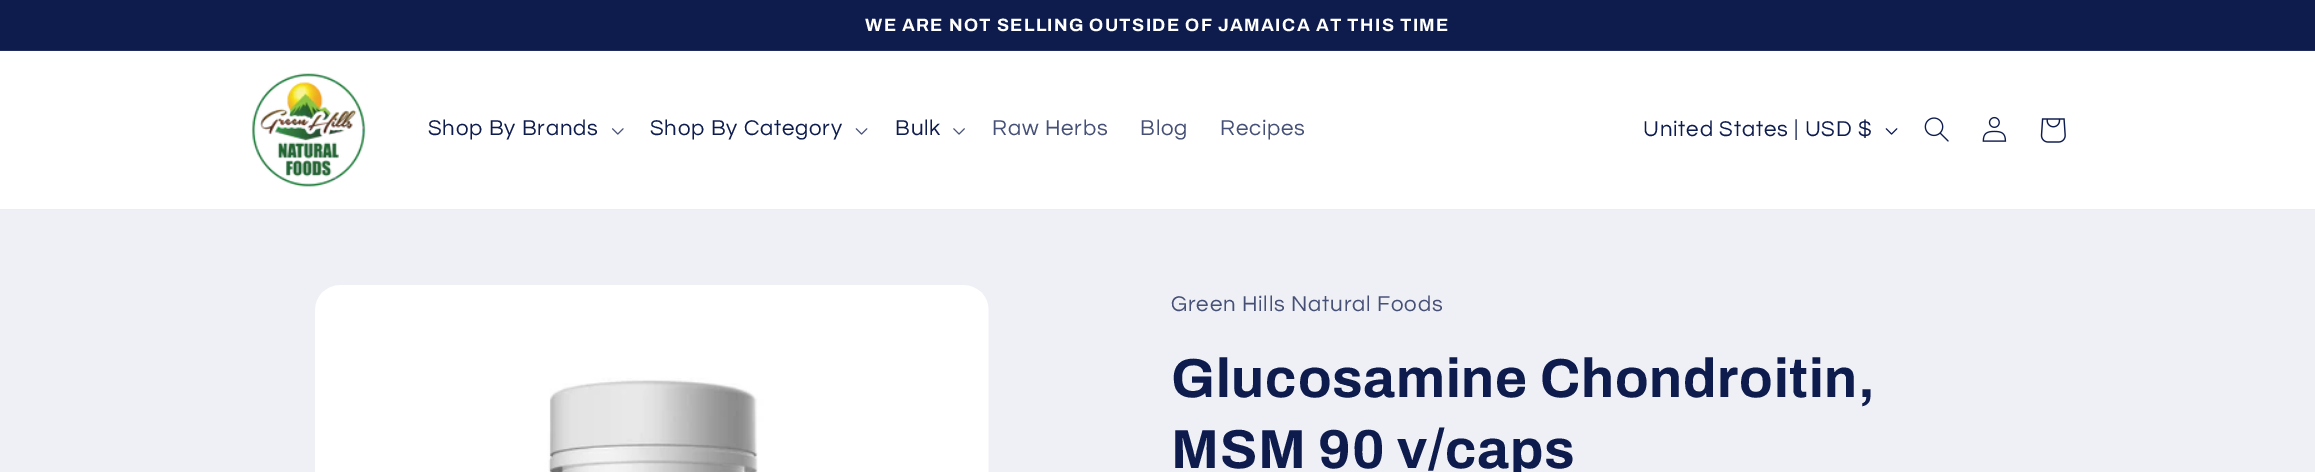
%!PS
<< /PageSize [2315 472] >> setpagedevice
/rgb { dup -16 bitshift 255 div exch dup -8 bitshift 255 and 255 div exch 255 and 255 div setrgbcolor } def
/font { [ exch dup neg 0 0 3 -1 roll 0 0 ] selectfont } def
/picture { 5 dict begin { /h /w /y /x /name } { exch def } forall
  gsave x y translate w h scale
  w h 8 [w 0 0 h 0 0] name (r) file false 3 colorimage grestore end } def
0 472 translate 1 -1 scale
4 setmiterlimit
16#EFF0F5 rgb
0 0 2315 472 rectfill
16#0E1B4D rgb
0 0 2315 50 rectfill
16#212D5B rgb
0 50 2315 1 rectfill
/Archivo-Bold 17.9 font
16#FFFFFF rgb
865 31 moveto 1.3 0 (WE ARE NOT SELLING OUTSIDE OF JAMAICA AT THIS TIME) ashow
0 51 2315 158 rectfill
16#ECEDF1 rgb
0 209 2315 1 rectfill
(pic1.raw) 251 73 115 114 picture
/Questrial-Regular 22.25 font
16#0E1B4D rgb
428 135 moveto 0.8 0 (Shop By Brands) ashow
(pic2.raw) 612 128 12 7 picture
650 135 moveto 0.8 0 (Shop By Category) ashow
(pic3.raw) 855 128 13 7 picture
895 135 moveto 0.8 0 (Bulk) ashow
(pic4.raw) 953 128 12 7 picture
16#465077 rgb
992 135 moveto 0.8 0 (Raw Herbs) ashow
1140 135 moveto 0.8 0 (Blog) ashow
1220 135 moveto 0.8 0 (Recipes) ashow
16#0E1B4D rgb
1643 136 moveto 0.8 0 (United States | USD $) ashow
(pic5.raw) 1885 128 13 7 picture
(pic6.raw) 1924 117 25 25 picture
(pic7.raw) 1982 116 25 26 picture
(pic8.raw) 2040 118 26 25 picture
(pic9.raw) 315 285 674 187 picture
16#465077 rgb
1171 311 moveto 0.8 0 (Green Hills Natural Foods) ashow
/Archivo-Bold 55 font
16#0E1B4D rgb
1171 397 moveto 0.8 0 (Glucosamine Chondroitin,) ashow
1171 468 moveto 0.8 0 (MSM 90 v/caps) ashow
showpage
